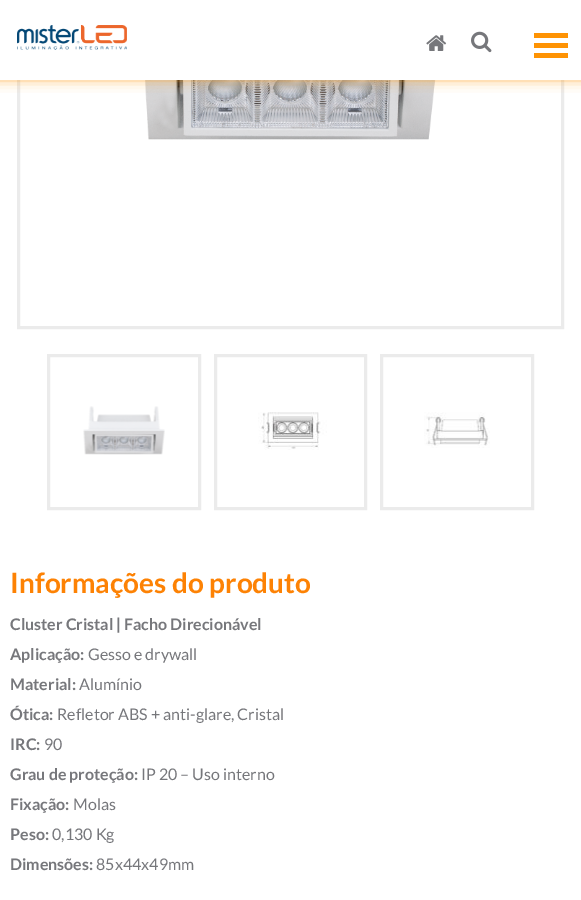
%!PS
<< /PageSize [581 900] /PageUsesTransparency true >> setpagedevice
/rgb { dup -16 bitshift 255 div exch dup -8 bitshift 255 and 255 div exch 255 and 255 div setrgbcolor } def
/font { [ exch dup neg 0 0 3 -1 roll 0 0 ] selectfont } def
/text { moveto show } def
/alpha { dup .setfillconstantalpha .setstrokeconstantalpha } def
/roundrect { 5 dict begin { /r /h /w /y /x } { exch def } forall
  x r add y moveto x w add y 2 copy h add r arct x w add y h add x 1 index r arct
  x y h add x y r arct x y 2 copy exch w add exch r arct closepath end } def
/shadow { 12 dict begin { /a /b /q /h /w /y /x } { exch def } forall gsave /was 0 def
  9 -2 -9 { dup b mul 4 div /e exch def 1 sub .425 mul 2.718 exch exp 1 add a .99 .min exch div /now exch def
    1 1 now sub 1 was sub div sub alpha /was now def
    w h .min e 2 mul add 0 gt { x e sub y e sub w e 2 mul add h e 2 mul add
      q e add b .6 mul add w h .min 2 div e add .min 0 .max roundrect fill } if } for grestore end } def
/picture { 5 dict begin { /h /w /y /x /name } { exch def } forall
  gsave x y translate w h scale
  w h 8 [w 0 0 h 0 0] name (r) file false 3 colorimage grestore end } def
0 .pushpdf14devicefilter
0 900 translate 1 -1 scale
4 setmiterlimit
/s1 { /Lato-Bold 28 font 16#FD8204 rgb } def
/s2 { /Lato-Bold 16 font 16#76777B rgb } def
/s3 { /Lato-Regular 16 font 16#76777B rgb } def
16#FFFFFF rgb
0 0 581 900 rectfill
16#EBEBEB rgb
3 setlinewidth
18.5 -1.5 544 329 rectstroke
(pic4.raw) 144 80 292 60 picture
16#FE9304 rgb
-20 -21 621 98 0 7 1 shadow
16#FFFFFF rgb
0 0 581 80 rectfill
(pic1.raw) 17 25 110 25 picture
(pic2.raw) 426 35 21 16 picture
(pic3.raw) 471 31 21 22 picture
16#FE9304 rgb
534 33 34 5 rectfill
534 43 34 5 rectfill
534 53 34 5 rectfill
16#EBEBEB rgb
48.5 355.5 151 153 rectstroke
(pic5.raw) 83 406 82 49 picture
215.5 355.5 150 153 rectstroke
(pic6.raw) 258 412 69 38 picture
381.5 355.5 151 153 rectstroke
(pic7.raw) 424 412 66 36 picture
s1
(Informações do produto) 10 593 text
s2
(Cluster Cristal | Facho Direcionável) 10 630 text
(Aplicação:) 10 660 text
s3
(Gesso e drywall) 88 660 text
s2
(Material:) 10 690 text
s3
(Alumínio) 79 690 text
s2
(Ótica:) 10 720 text
s3
(Refletor ABS + anti-glare, Cristal) 57 720 text
s2
(IRC:) 10 750 text
s3
(90) 44 750 text
s2
(Grau de proteção:) 10 780 text
s3
(IP 20 – Uso interno) 141 780 text
s2
(Fixação:) 10 810 text
s3
(Molas) 73 810 text
s2
(Peso:) 10 840 text
s3
(0,130 Kg) 52 840 text
s2
(Dimensões:) 10 870 text
s3
(85x44x49mm) 96 870 text
.poppdf14devicefilter showpage
